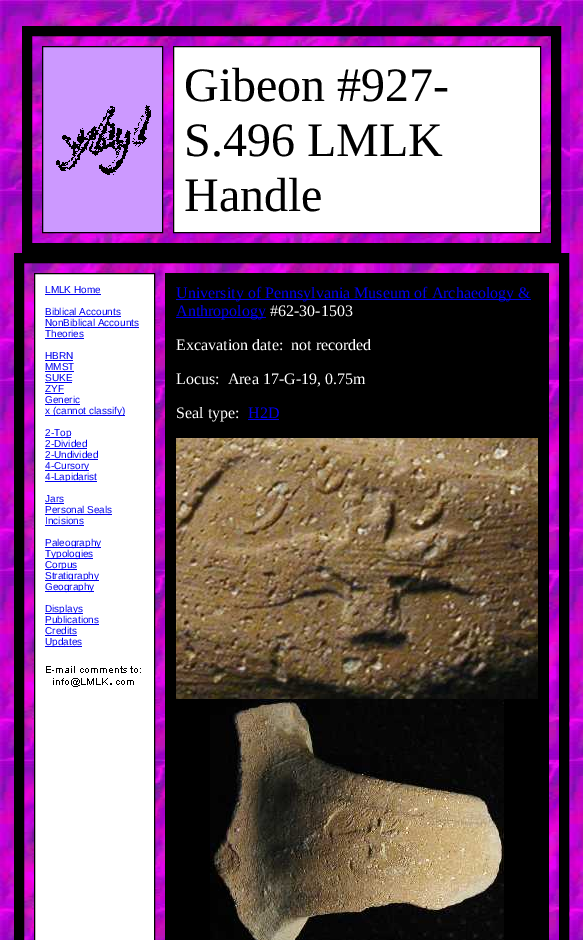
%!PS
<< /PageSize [583 940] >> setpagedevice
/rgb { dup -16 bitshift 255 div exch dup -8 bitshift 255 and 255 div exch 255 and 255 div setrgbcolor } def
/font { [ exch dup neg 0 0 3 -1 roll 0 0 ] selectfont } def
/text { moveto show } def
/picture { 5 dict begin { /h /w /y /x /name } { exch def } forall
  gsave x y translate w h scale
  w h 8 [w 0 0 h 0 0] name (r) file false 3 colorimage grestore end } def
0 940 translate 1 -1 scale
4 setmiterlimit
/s1 { /LiberationSerif-Regular 48 font 16#000000 rgb } def
/s2 { /LiberationSans-Regular 10 font 16#0000EE rgb } def
/s3 { /LiberationSerif-Regular 16 font 16#0000EE rgb } def
/s4 { /LiberationSerif-Regular 16 font 16#FFFFFF rgb } def
16#FFFFFF rgb
0 0 583 940 rectfill
(pic1.raw) 0 0 583 940 picture
16#000000 rgb
10 setlinewidth
27 31 529 217 rectstroke
16#CC99FF rgb
42.5 46.5 moveto 162.5 46.5 lineto 162.5 232.5 lineto 42.5 232.5 lineto closepath gsave fill grestore
16#000000 rgb
1 setlinewidth
stroke
(pic2.raw) 56 105 95 70 picture
16#FFFFFF rgb
173.5 46.5 moveto 540.5 46.5 lineto 540.5 232.5 lineto 173.5 232.5 lineto closepath gsave fill grestore
16#000000 rgb
stroke
s1
(Gibeon #927-) 184 101 text
(S.496 LMLK) 184 156 text
(Handle) 184 211 text
10 setlinewidth
19 258 545 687 rectstroke
16#FFFFFF rgb
34.5 273.5 moveto 154.5 273.5 lineto 154.5 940.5 lineto 34.5 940.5 lineto closepath gsave fill grestore
16#000000 rgb
1 setlinewidth
stroke
s2
(LMLK Home) 45 293 text
45 294 56 1 rectfill
(Biblical Accounts) 45 315 text
45 316 76 1 rectfill
(NonBiblical Accounts) 45 326 text
45 327 94 1 rectfill
(Theories) 45 337 text
45 338 39 1 rectfill
(HBRN) 45 359 text
45 360 28 1 rectfill
(MMST) 45 370 text
45 371 29 1 rectfill
(SUKE) 45 381 text
45 382 27 1 rectfill
(ZYF) 45 392 text
45 393 19 1 rectfill
(Generic) 45 403 text
45 404 35 1 rectfill
45 415 80 1 rectfill
(x \(cannot classify\)) 45 414 text
45 437 26 1 rectfill
(2-Top) 45 436 text
(2-Divided) 45 447 text
45 448 42 1 rectfill
(2-Undivided) 45 458 text
45 459 53 1 rectfill
45 470 44 1 rectfill
(4-Cursory) 45 469 text
45 481 52 1 rectfill
(4-Lapidarist) 45 480 text
(Jars) 45 502 text
45 503 19 1 rectfill
(Personal Seals) 45 513 text
45 514 67 1 rectfill
(Incisions) 45 524 text
45 525 39 1 rectfill
45 547 56 1 rectfill
(Paleography) 45 546 text
45 558 48 1 rectfill
(Typologies) 45 557 text
45 569 32 1 rectfill
(Corpus) 45 568 text
45 580 54 1 rectfill
(Stratigraphy) 45 579 text
45 591 49 1 rectfill
(Geography) 45 590 text
45 613 38 1 rectfill
(Displays) 45 612 text
(Publications) 45 623 text
45 624 54 1 rectfill
(Credits) 45 634 text
45 635 32 1 rectfill
45 646 37 1 rectfill
(Updates) 45 645 text
(pic3.raw) 46 666 95 21 picture
16#000000 rgb
165 273 384 667 rectfill
16#0000EE rgb
176 299 355 1 rectfill
s3
(University of Pennsylvania Museum of Archaeology &) 176 298 text
176 317 90 1 rectfill
(Anthropology) 176 316 text
s4
(#62-30-1503) 270 316 text
(Excavation date:  not recorded) 176 350 text
(Locus:  Area 17-G-19, 0.75m) 176 384 text
(Seal type:) 176 418 text
s3
(H2D) 248 418 text
248 419 31 1 rectfill
(pic4.raw) 176 438 362 261 picture
(pic5.raw) 210 699 294 241 picture
showpage
